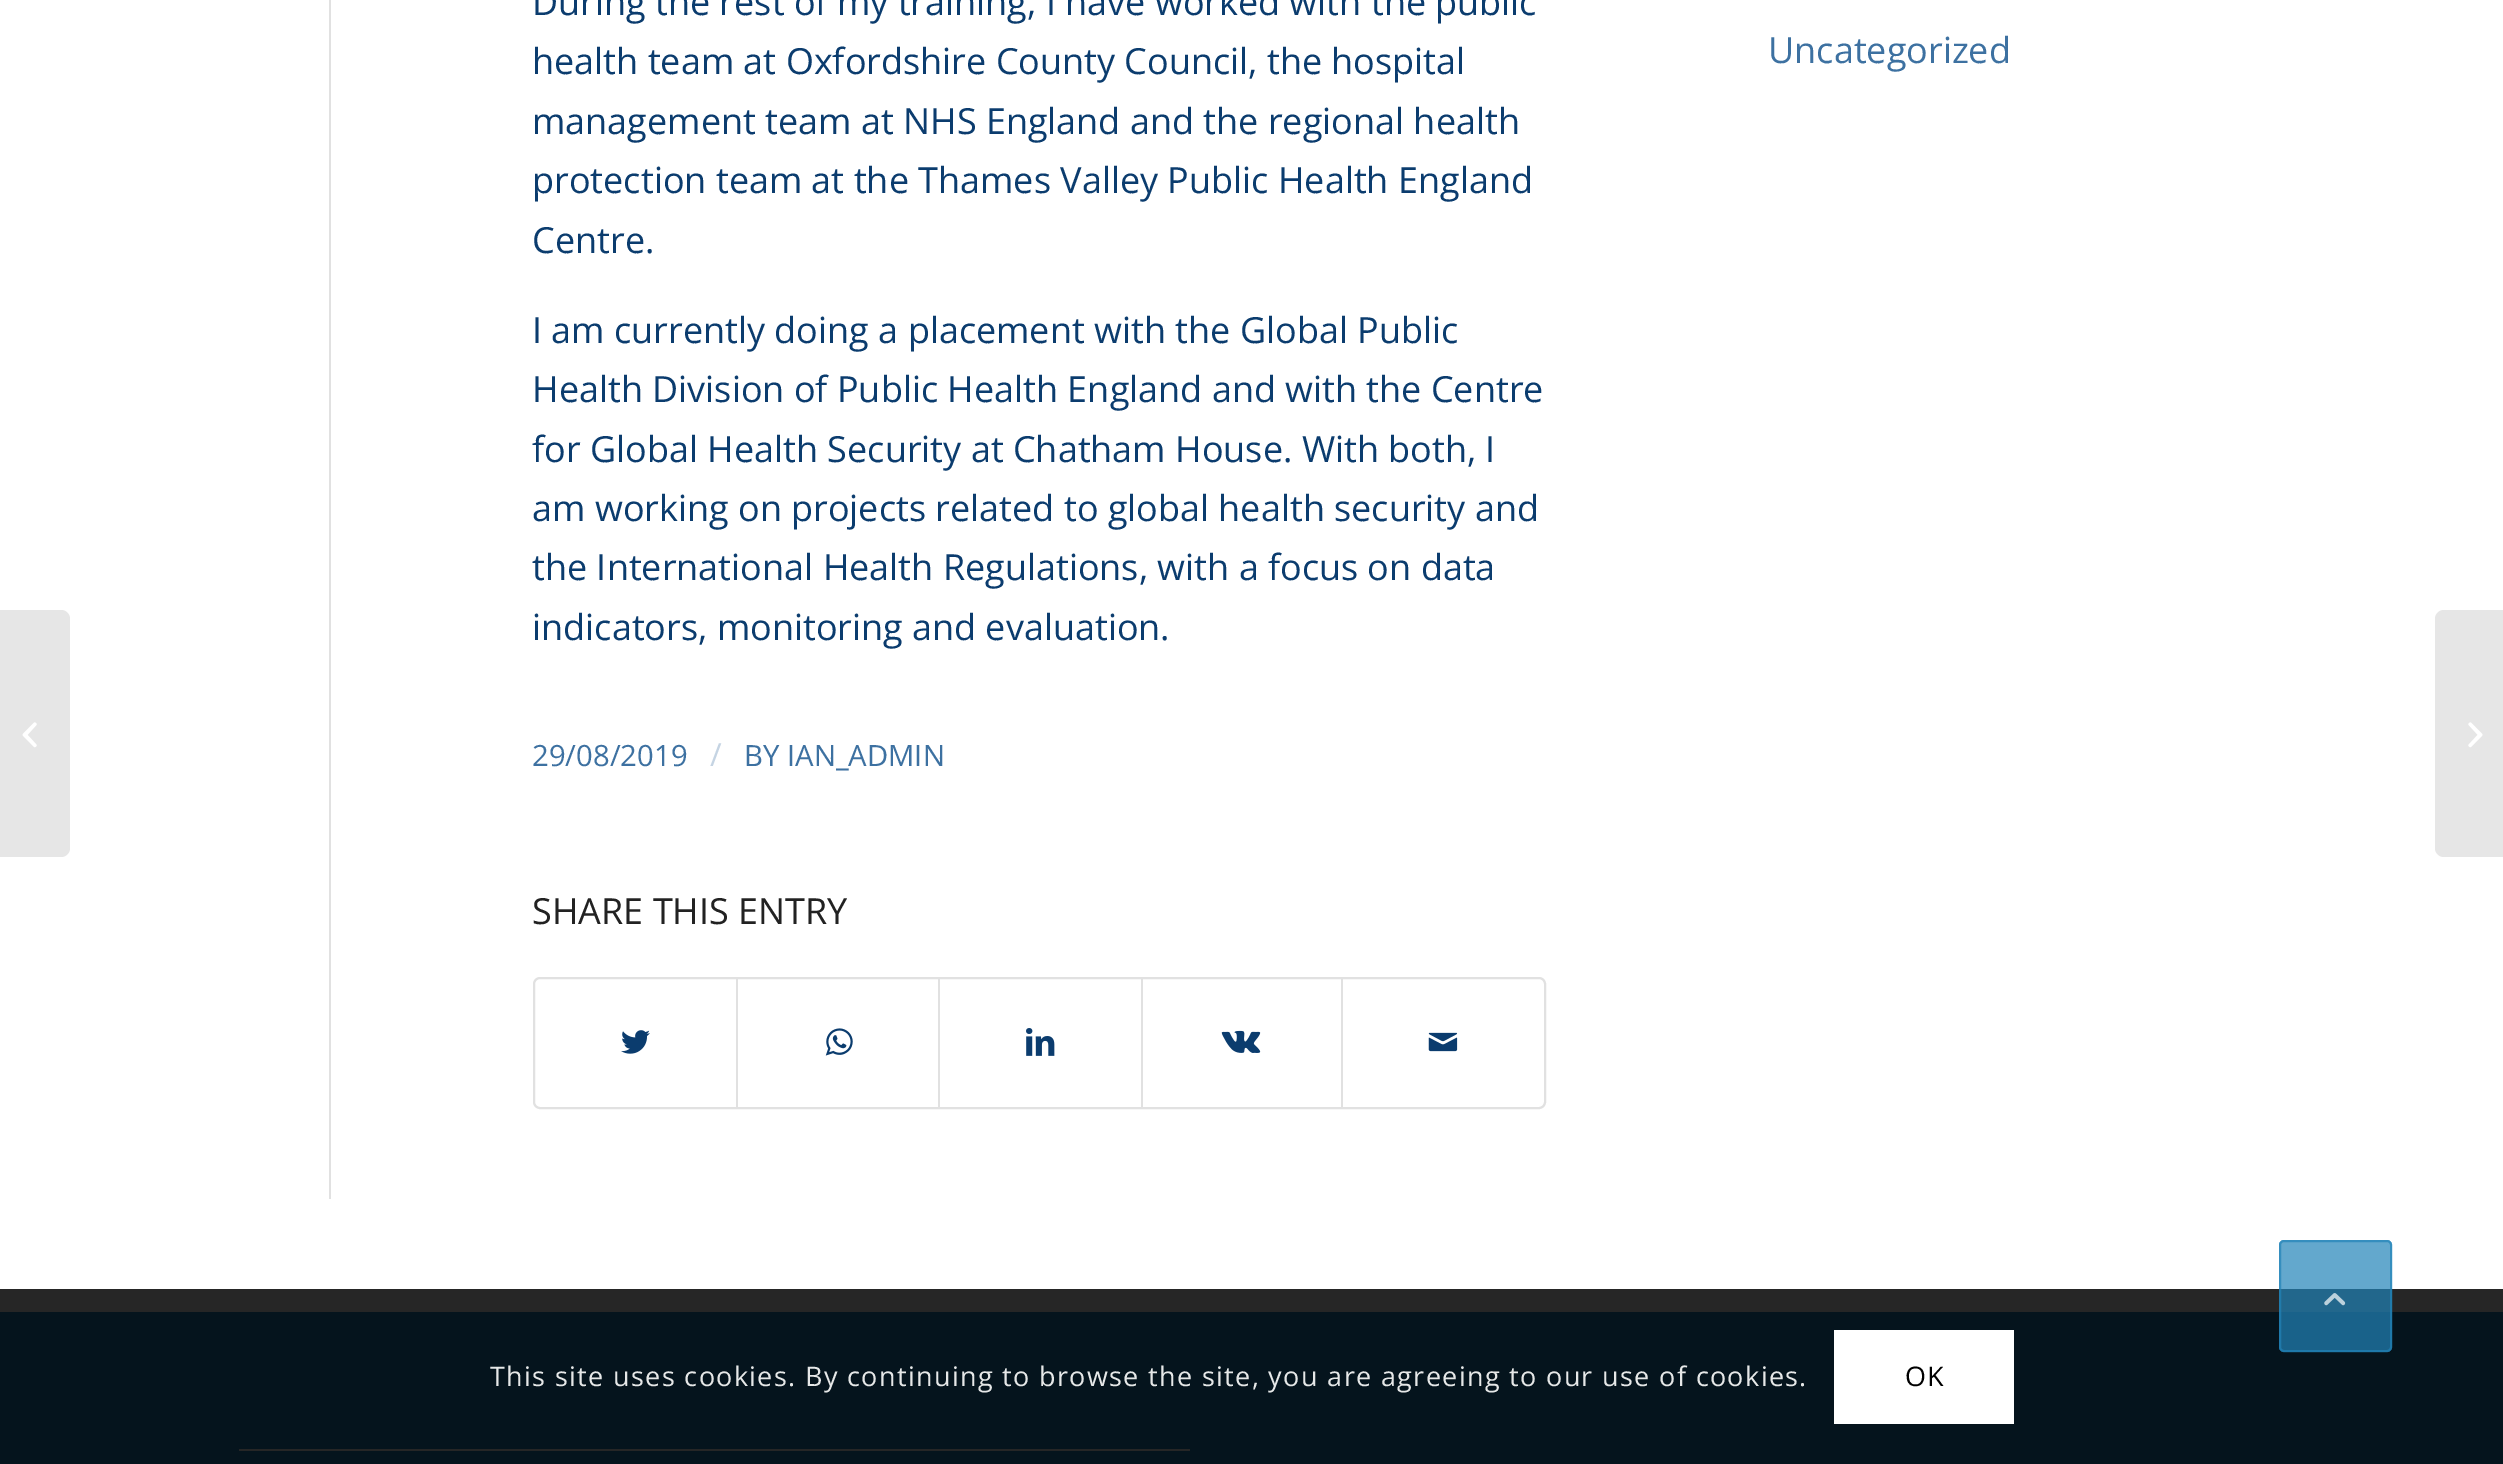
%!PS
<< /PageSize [2503 1464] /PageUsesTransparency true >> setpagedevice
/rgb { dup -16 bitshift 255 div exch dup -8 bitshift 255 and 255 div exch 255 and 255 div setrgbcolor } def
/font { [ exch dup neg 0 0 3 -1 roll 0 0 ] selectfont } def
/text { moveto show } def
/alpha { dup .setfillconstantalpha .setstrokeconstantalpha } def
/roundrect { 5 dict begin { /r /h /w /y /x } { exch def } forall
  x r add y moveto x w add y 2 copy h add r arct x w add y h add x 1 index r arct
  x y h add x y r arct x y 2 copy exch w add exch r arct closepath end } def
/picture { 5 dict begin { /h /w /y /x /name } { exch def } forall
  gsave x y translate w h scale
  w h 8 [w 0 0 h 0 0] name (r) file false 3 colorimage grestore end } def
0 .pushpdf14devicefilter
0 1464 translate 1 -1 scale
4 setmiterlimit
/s1 { /OpenSans-Regular 36 font 16#0B3C6E rgb } def
/s2 { /OpenSans-Regular 29.25 font 16#3D71A1 rgb } def
/s3 { /OpenSans-Regular 32 font 16#C5D4E3 rgb } def
/s4 { /OpenSans-Regular 36 font 16#222222 rgb } def
/s5 { /OpenSans-Regular 36 font 16#3D71A1 rgb } def
16#FFFFFF rgb
0 0 2503 1464 rectfill
16#262626 rgb
0 1289 2503 23 rectfill
16#E6E6E6 rgb
0 610 moveto 61 610 lineto 66 610 70 614 70 619 curveto 70 848 lineto 70 853 66 857 61 857 curveto 0 857 lineto closepath fill
(pic1.raw) 22 722 15 26 picture
16#E1E1E1 rgb
329 0 2 1199 rectfill
s1
(During the rest of my training, I have worked with the public) 532 15 text
(health team at Oxfordshire County Council, the hospital) 532 74 text
(management team at NHS England and the regional health) 532 134 text
(protection team at the Thames Valley Public Health England) 532 193 text
(Centre.) 532 253 text
(I am currently doing a placement with the Global Public) 532 343 text
(Health Division of Public Health England and with the Centre) 532 402 text
(for Global Health Security at Chatham House. With both, I) 532 462 text
(am working on projects related to global health security and) 532 521 text
(the International Health Regulations, with a focus on data) 532 580 text
(indicators, monitoring and evaluation.) 532 640 text
s2
(29/08/2019) 532 766 text
s3
(/) 710 766 text
s2
(BY IAN_ADMIN) 744 766 text
s4
(SHARE THIS ENTRY) 532 924 text
16#E1E1E1 rgb
2 setlinewidth
534 978 1011 130 6 roundrect stroke
(pic2.raw) 621 1030 29 24 picture
736 979 2 128 rectfill
(pic3.raw) 825 1028 28 28 picture
938 979 2 128 rectfill
(pic4.raw) 1026 1028 29 28 picture
1141 979 2 128 rectfill
(pic5.raw) 1221 1030 40 23 picture
1341 979 2 128 rectfill
(pic6.raw) 1428 1032 30 20 picture
s5
(Uncategorized) 1768 63 text
16#05141D rgb
0 1312 2503 152 rectfill
16#262626 rgb
239 1449 951 2 rectfill
16#E6E6E6 rgb
2444 610 moveto 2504 610 lineto 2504 857 lineto 2444 857 lineto 2439 857 2435 853 2435 848 curveto 2435 619 lineto 2435 614 2439 610 2444 610 curveto closepath fill
(pic7.raw) 2468 722 15 26 picture
0.7 alpha
16#2183B8 rgb
2279 1240 113 112 5 roundrect fill
2280 1241 111 110 4 roundrect stroke
1 alpha
(pic8.raw) 2324 1293 22 13 picture
/OpenSans-Regular 27 font
16#E6E8E8 rgb
490 1386 moveto 1.35 0 (This site uses cookies. By continuing to browse the site, you are agreeing to our use of cookies.) ashow
16#FFFFFF rgb
1834 1330 180 94 rectfill
16#000000 rgb
1905 1386 moveto 1.35 0 (OK) ashow
.poppdf14devicefilter showpage
